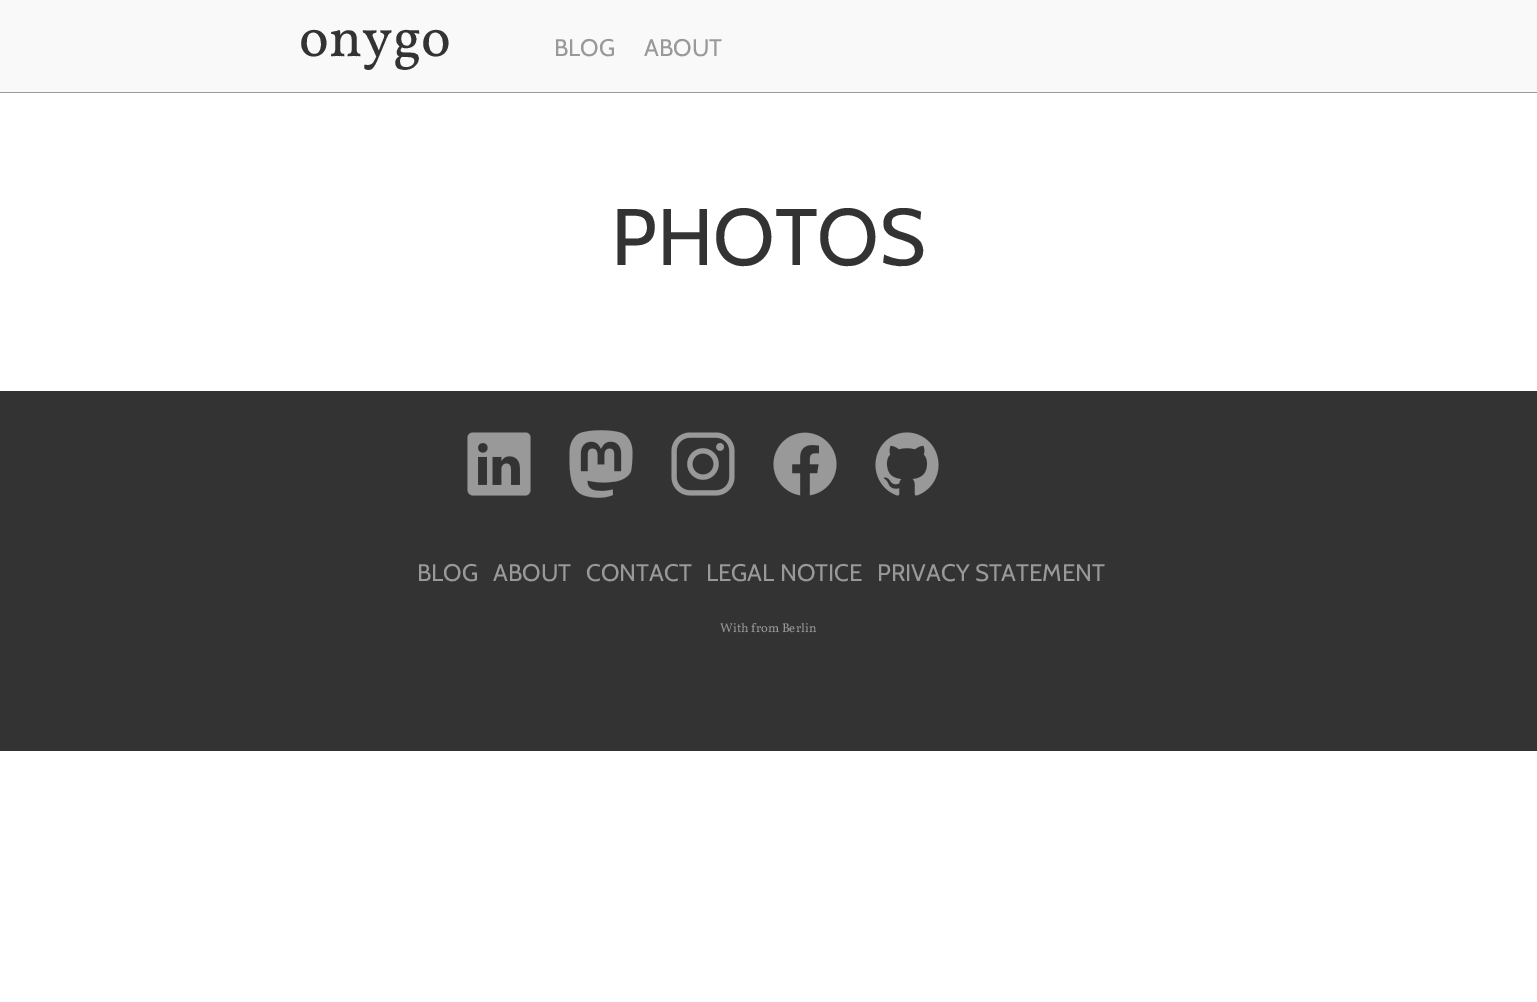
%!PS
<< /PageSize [1537 1002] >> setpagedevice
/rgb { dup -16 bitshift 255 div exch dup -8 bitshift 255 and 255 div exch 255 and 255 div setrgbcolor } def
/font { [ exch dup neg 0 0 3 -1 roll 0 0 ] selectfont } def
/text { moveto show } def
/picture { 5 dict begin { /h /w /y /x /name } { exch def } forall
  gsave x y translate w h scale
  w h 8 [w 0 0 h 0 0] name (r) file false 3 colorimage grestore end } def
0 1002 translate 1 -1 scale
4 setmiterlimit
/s1 { /Vollkorn-Regular 56 font 16#333333 rgb } def
/s2 { /Cabin-Regular 24 font 16#999999 rgb } def
/s3 { /Cabin-Regular 80 font 16#333333 rgb } def
/s4 { /Vollkorn-Regular 12.75 font 16#999999 rgb } def
16#FFFFFF rgb
0 0 1537 1002 rectfill
16#F9F9F9 rgb
0 0 1537 92 rectfill
16#999999 rgb
0 92 1537 1 rectfill
s1
(onygo) 299 56 text
s2
(BLOG) 554 56 text
(ABOUT) 644 56 text
s3
(PHOTOS) 611 265 text
0 391 1537 360 rectfill
(pic1.raw) 467 432 64 64 picture
(pic2.raw) 569 430 64 68 picture
(pic3.raw) 671 432 64 64 picture
(pic4.raw) 773 432 64 64 picture
(pic5.raw) 875 432 64 64 picture
s2
(BLOG) 417 581 text
(ABOUT) 493 581 text
(CONTACT) 586 581 text
(LEGAL NOTICE) 706 581 text
(PRIVACY STATEMENT) 877 581 text
s4
(With from Berlin) 720 632 text
showpage
